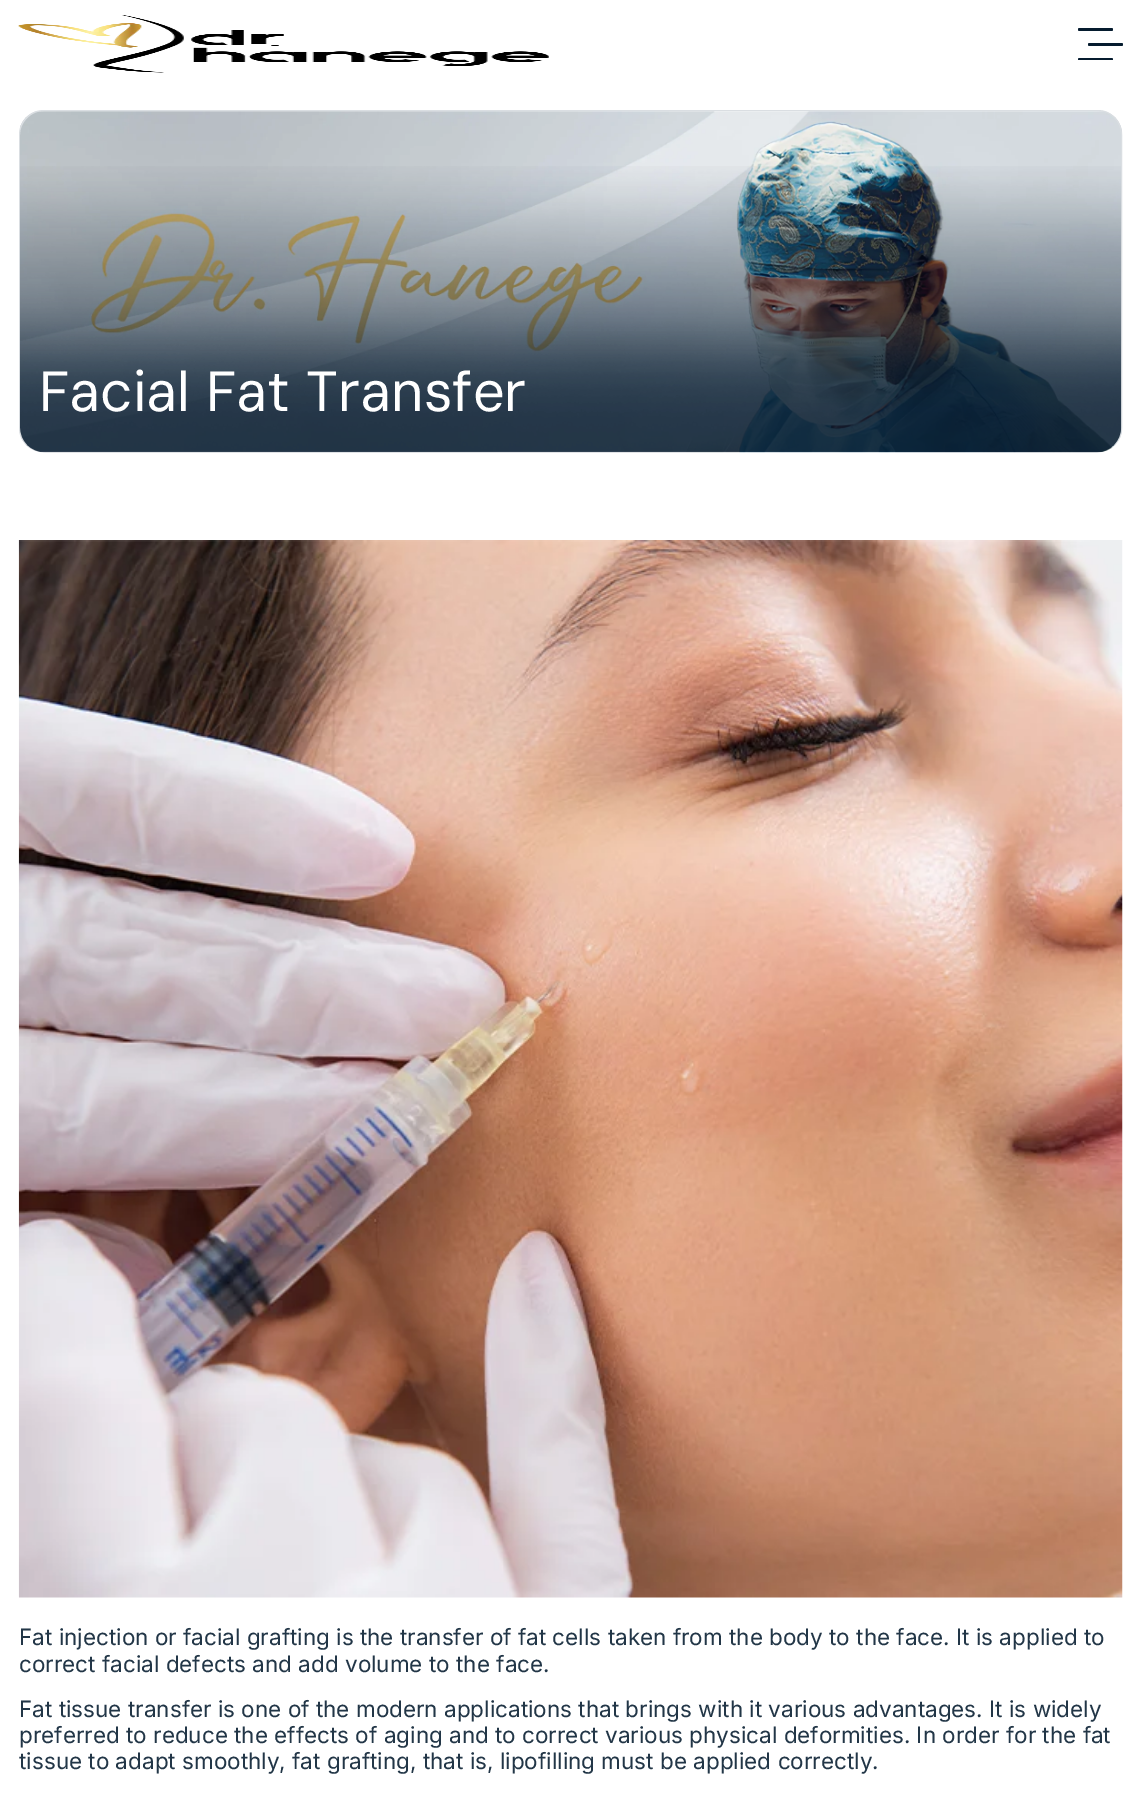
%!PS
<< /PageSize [1141 1801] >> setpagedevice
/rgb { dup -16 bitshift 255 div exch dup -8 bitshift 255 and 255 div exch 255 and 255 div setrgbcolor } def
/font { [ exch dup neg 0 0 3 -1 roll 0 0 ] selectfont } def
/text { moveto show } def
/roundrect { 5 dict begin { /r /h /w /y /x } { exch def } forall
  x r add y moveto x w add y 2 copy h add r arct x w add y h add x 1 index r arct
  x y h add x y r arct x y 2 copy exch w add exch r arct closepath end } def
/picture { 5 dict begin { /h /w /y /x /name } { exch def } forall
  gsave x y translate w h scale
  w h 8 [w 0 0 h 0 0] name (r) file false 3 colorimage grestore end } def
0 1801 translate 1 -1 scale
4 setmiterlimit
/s1 { /Inter-Regular 22.5 font 16#223647 rgb } def
16#FFFFFF rgb
0 0 1141 1801 rectfill
(pic1.raw) 18 15 531 58 picture
16#051B2E rgb
1078 28 35 3 1.5 roundrect fill
1088 43 35 3 1.5 roundrect fill
gsave
1078 28 45 32 rectclip
1078 58 35 3 1.5 roundrect fill
grestore
(pic2.raw) 20 111 1103 342 picture
16#DADEE2 rgb
44 110 moveto 1098 110 lineto 1111 110 1122 121 1122 135 curveto 1122 428 lineto 1122 441 1111 452 1098 452 curveto 44 452 lineto 30 452 19 441 19 428 curveto 19 135 lineto 19 121 30 110 44 110 curveto closepath 44 111 moveto 1098 111 lineto 1111 111 1121 122 1121 135 curveto 1121 428 lineto 1121 441 1111 452 1098 452 curveto 44 452 lineto 31 452 20 441 20 428 curveto 20 135 lineto 20 122 31 111 44 111 curveto closepath eofill
(pic3.raw) 20 166 1102 287 picture
/DMSans-Regular 56.25 font
16#FFFFFF rgb
39 411 moveto 1 0 32 (Facial Fat Transfer) widthshow
(pic4.raw) 18 540 1105 1058 picture
s1
(Fat injection or facial grafting is the transfer of fat cells taken from the body to the face. It is applied to) 19 1645 text
(correct facial defects and add volume to the face.) 19 1672 text
(Fat tissue transfer is one of the modern applications that brings with it various advantages. It is widely) 19 1717 text
(preferred to reduce the effects of aging and to correct various physical deformities. In order for the fat) 19 1743 text
(tissue to adapt smoothly, fat grafting, that is, lipofilling must be applied correctly.) 19 1769 text
showpage
